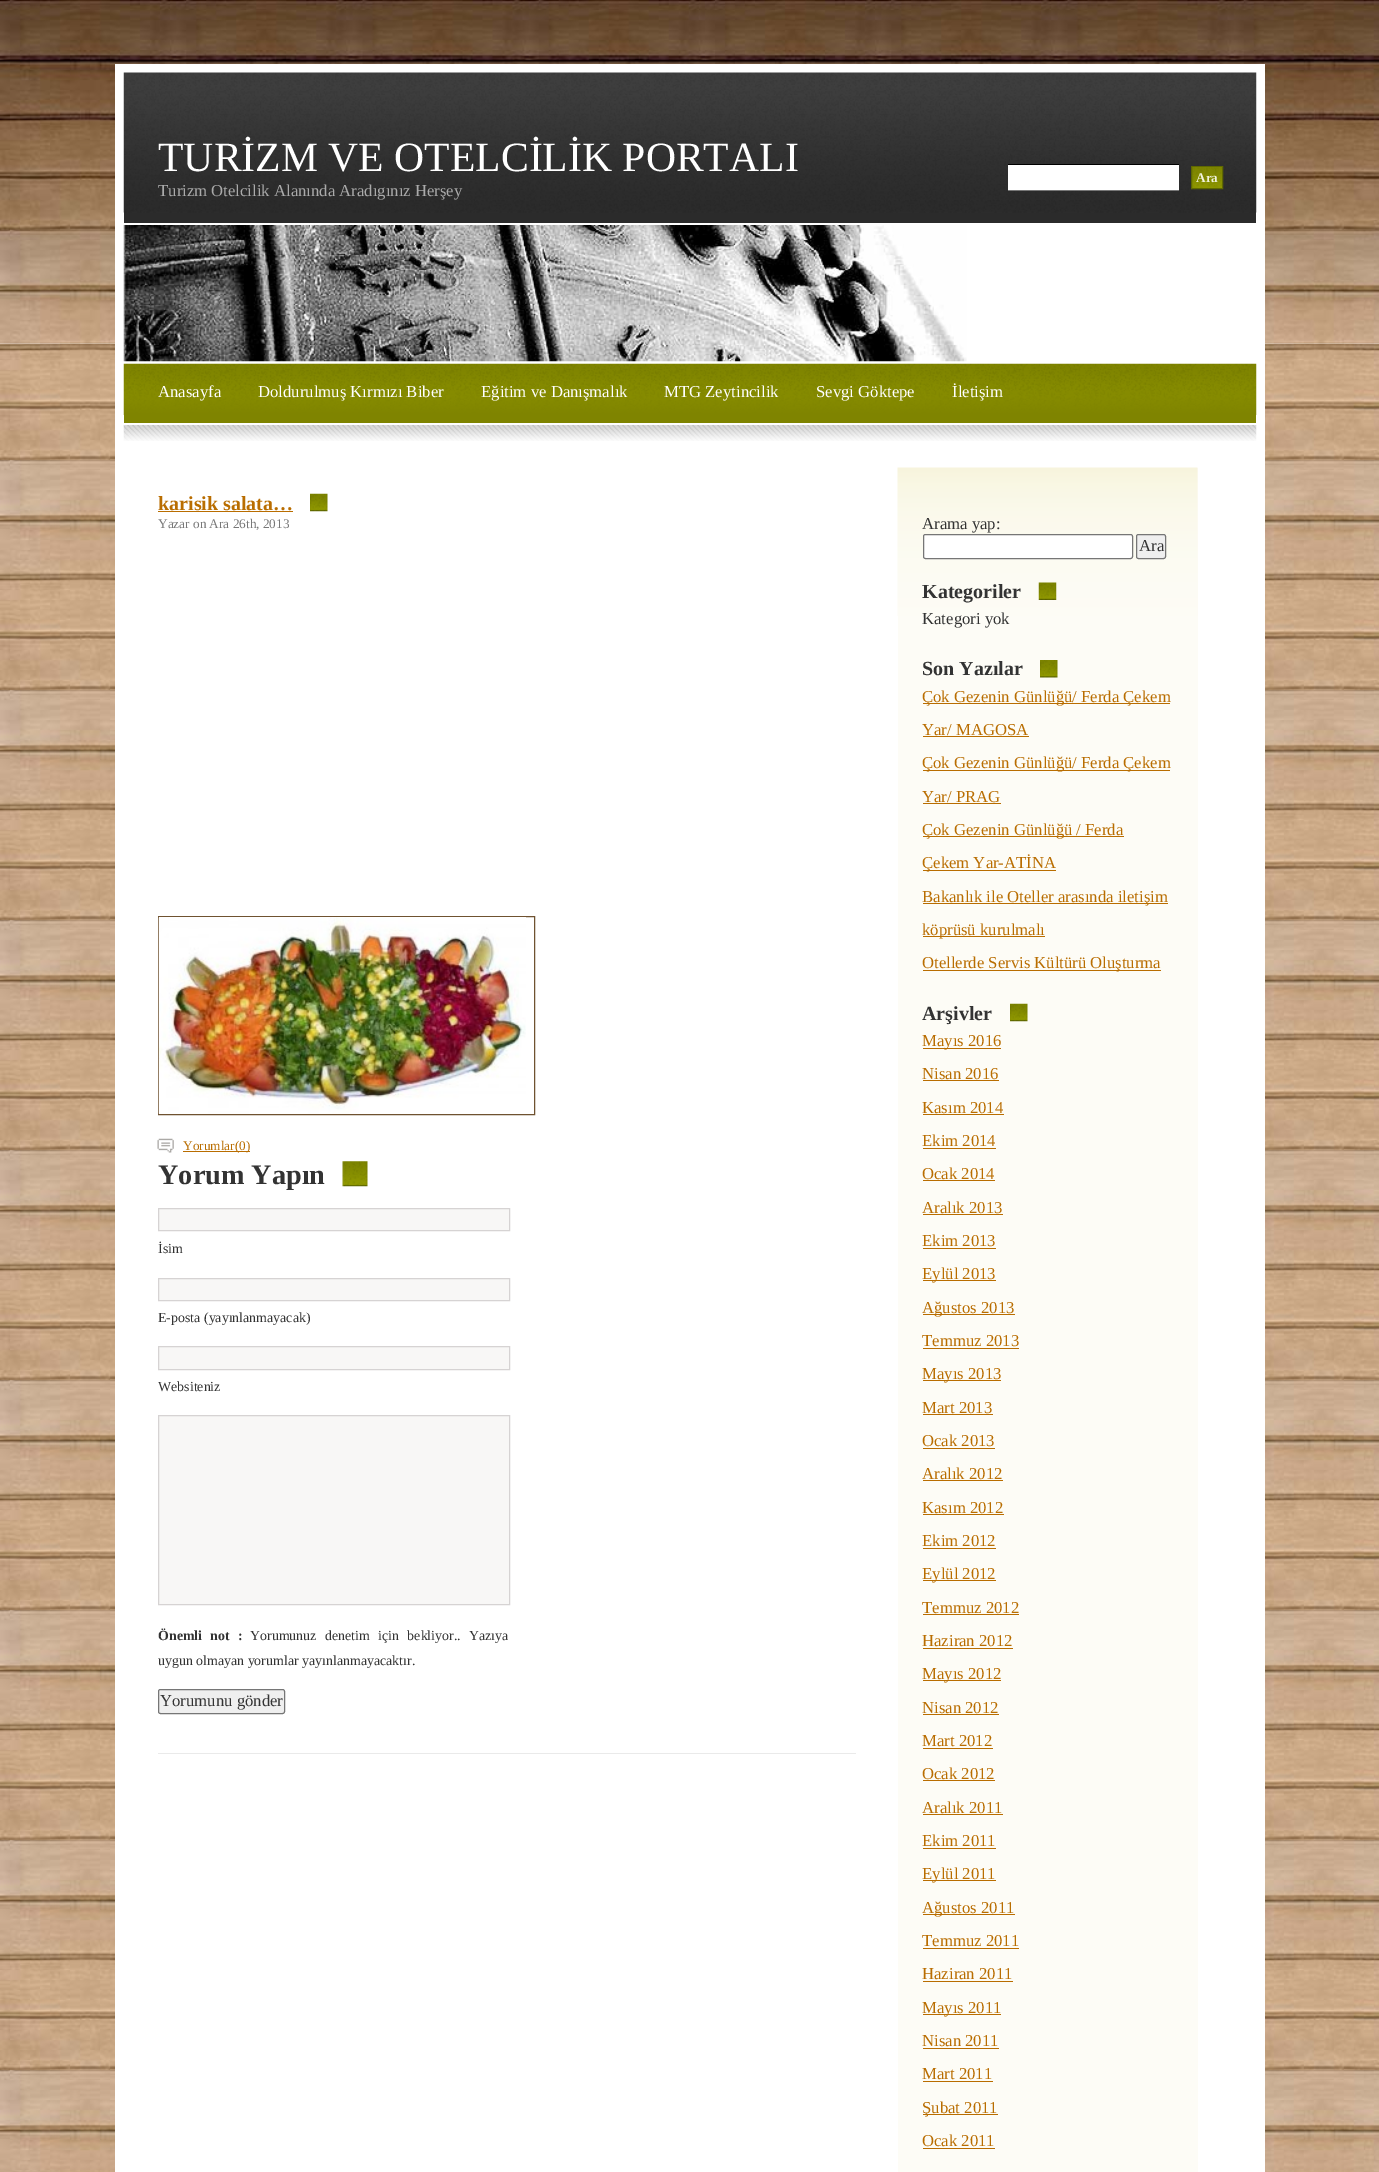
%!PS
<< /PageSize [1379 2172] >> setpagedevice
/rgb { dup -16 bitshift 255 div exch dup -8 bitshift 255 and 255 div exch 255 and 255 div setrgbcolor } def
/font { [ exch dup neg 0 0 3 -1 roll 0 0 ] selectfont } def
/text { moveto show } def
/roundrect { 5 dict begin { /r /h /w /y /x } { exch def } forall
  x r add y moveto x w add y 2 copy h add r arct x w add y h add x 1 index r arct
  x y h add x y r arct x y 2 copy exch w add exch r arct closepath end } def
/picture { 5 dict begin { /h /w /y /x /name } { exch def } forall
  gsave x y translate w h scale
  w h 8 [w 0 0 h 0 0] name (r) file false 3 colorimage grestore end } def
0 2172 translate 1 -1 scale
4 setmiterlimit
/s1 { /LiberationSerif-Regular 41.7 font 16#FFFFFF rgb } def
/s2 { /LiberationSerif-Regular 16.7 font 16#AAAAAA rgb } def
/s3 { /LiberationSerif-Bold 13.25 font 16#F2F3DE rgb } def
/s4 { /LiberationSerif-Regular 16.7 font 16#FFFFFF rgb } def
/s5 { /LiberationSerif-Bold 20 font 16#B96D00 rgb } def
/s6 { /LiberationSerif-Regular 13.25 font 16#787878 rgb } def
/s7 { /LiberationSerif-Regular 13.25 font 16#B96D00 rgb } def
/s8 { /LiberationSerif-Bold 28.25 font 16#333333 rgb } def
/s9 { /LiberationSerif-Regular 13.9 font 16#333333 rgb } def
/s10 { /LiberationSerif-Regular 16.7 font 16#333333 rgb } def
/s11 { /LiberationSerif-Bold 20 font 16#333333 rgb } def
/s12 { /LiberationSerif-Regular 16.7 font 16#B96D00 rgb } def
16#FFFFFF rgb
0 0 1379 2172 rectfill
(pic1.raw) 0 343 1379 1829 picture
(pic2.raw) 0 0 1379 344 picture
115 64 1150 2108 rectfill
16#2B2B2B rgb
124 212 1132 11 rectfill
(pic3.raw) 123 72 1134 141 picture
s1
(TURİZM VE OTELCİLİK PORTALI) 158 171 text
s2
(Turizm Otelcilik Alanında Aradıgınız Herşey) 158 196 text
16#FFFFFF rgb
1008 165 171 25 rectfill
16#000000 rgb
1008 164 171 1 rectfill
16#777777 rgb
1008 190 171 1 rectfill
16#939B00 rgb
1192 167 30 1 rectfill
(pic4.raw) 1192 167 30 21 picture
16#5F6800 rgb
1191.5 166.5 31 22 rectstroke
s3
(Ara) 1196 182 text
(pic5.raw) 123 225 844 137 picture
16#7F8400 rgb
124 415 1132 8 rectfill
(pic6.raw) 123 363 1134 52 picture
s4
(Anasayfa) 158 397 text
(Doldurulmuş Kırmızı Biber) 258 397 text
(Eğitim ve Danışmalık) 481 397 text
(MTG Zeytincilik) 664 397 text
(Sevgi Göktepe) 816 397 text
(İletişim) 952 397 text
(pic7.raw) 123 425 1134 16 picture
s5
(karisik salata…) 158 510 text
158 511 135 1 rectfill
(pic8.raw) 310 493 18 19 picture
s6
(Yazar on Ara 26th, 2013) 158 528 text
16#6F5230 rgb
158.5 916.5 376 198 rectstroke
(pic9.raw) 158 917 368 197 picture
(pic10.raw) 157 1138 17 15 picture
16#B96D00 rgb
183 1151 67 1 rectfill
(Yorumlar\(0\)) 183 1150 text
s8
(Yorum Yapın) 158 1184 text
(pic11.raw) 342 1161 26 26 picture
16#F8F7F6 rgb
158.5 1208.5 moveto 509.5 1208.5 lineto 509.5 1230.5 lineto 158.5 1230.5 lineto closepath gsave fill grestore
16#D6D3D3 rgb
stroke
s9
(İsim) 158 1253 text
16#F8F7F6 rgb
158.5 1278.5 moveto 509.5 1278.5 lineto 509.5 1300.5 lineto 158.5 1300.5 lineto closepath gsave fill grestore
16#D6D3D3 rgb
stroke
s9
(E-posta \(yayınlanmayacak\)) 158 1322 text
16#F8F7F6 rgb
158.5 1346.5 moveto 509.5 1346.5 lineto 509.5 1369.5 lineto 158.5 1369.5 lineto closepath gsave fill grestore
16#D6D3D3 rgb
stroke
s9
(Websiteniz) 158 1391 text
16#F8F7F6 rgb
158.5 1415.5 moveto 509.5 1415.5 lineto 509.5 1604.5 lineto 158.5 1604.5 lineto closepath gsave fill grestore
16#D6D3D3 rgb
stroke
/LiberationSerif-Bold 13.9 font
16#333333 rgb
158 1640 moveto 5 0 32 (Önemli not :) widthshow
/LiberationSerif-Regular 13.9 font
250 1640 moveto 5 0 32 (Yorumunuz denetim için bekliyor.. Yazıya) widthshow
(uygun olmayan yorumlar yayınlanmayacaktır.) 158 1665 text
16#EFEFEF rgb
158.5 1689.5 126 24 2 roundrect gsave fill grestore
16#767676 rgb
stroke
s10
(Yorumunu gönder) 160 1706 text
16#EAEAEA rgb
158 1753 698 1 rectfill
16#FDFCF6 rgb
898 468 300 1704 rectfill
(pic12.raw) 897 467 301 149 picture
s10
(Arama yap:) 922 529 text
16#FFFFFF rgb
923.5 534.5 209 24 2 roundrect gsave fill grestore
16#767676 rgb
stroke
16#EFEFEF rgb
1136.5 534.5 29 24 2 roundrect gsave fill grestore
16#767676 rgb
stroke
s10
(Ara) 1139 551 text
s11
(Kategoriler) 922 598 text
(pic13.raw) 1038 582 19 18 picture
s10
(Kategori yok) 922 624 text
s11
(Son Yazılar) 922 675 text
(pic14.raw) 1040 660 18 18 picture
16#B96D00 rgb
923 703 247 1 rectfill
s12
(Çok Gezenin Günlüğü/ Ferda Çekem) 922 702 text
(Yar/ MAGOSA) 922 735 text
923 736 106 1 rectfill
923 770 247 1 rectfill
(Çok Gezenin Günlüğü/ Ferda Çekem) 922 768 text
(Yar/ PRAG) 922 802 text
923 803 78 1 rectfill
923 836 201 1 rectfill
(Çok Gezenin Günlüğü / Ferda) 922 835 text
923 870 133 1 rectfill
(Çekem Yar-ATİNA) 922 868 text
923 903 245 1 rectfill
(Bakanlık ile Oteller arasında iletişim) 922 902 text
923 936 122 1 rectfill
(köprüsü kurulmalı) 922 935 text
923 970 238 1 rectfill
(Otellerde Servis Kültürü Oluşturma) 922 968 text
s11
(Arşivler) 922 1020 text
(pic15.raw) 1010 1003 18 19 picture
16#B96D00 rgb
923 1048 78 1 rectfill
s12
(Mayıs 2016) 922 1046 text
(Nisan 2016) 922 1079 text
923 1080 76 1 rectfill
(Kasım 2014) 922 1113 text
923 1114 81 1 rectfill
(Ekim 2014) 922 1146 text
923 1148 73 1 rectfill
(Ocak 2014) 922 1179 text
923 1180 72 1 rectfill
(Aralık 2013) 922 1213 text
923 1214 80 1 rectfill
(Ekim 2013) 922 1246 text
923 1248 73 1 rectfill
923 1280 73 1 rectfill
(Eylül 2013) 922 1279 text
923 1314 92 1 rectfill
(Ağustos 2013) 922 1313 text
(Temmuz 2013) 922 1346 text
923 1348 96 1 rectfill
923 1380 78 1 rectfill
(Mayıs 2013) 922 1379 text
(Mart 2013) 922 1413 text
923 1414 70 1 rectfill
(Ocak 2013) 922 1446 text
923 1448 72 1 rectfill
(Aralık 2012) 922 1479 text
923 1480 80 1 rectfill
(Kasım 2012) 922 1513 text
923 1514 81 1 rectfill
(Ekim 2012) 922 1546 text
923 1548 73 1 rectfill
923 1580 73 1 rectfill
(Eylül 2012) 922 1579 text
(Temmuz 2012) 922 1613 text
923 1614 96 1 rectfill
(Haziran 2012) 922 1646 text
923 1648 90 1 rectfill
923 1680 78 1 rectfill
(Mayıs 2012) 922 1679 text
(Nisan 2012) 922 1713 text
923 1714 76 1 rectfill
(Mart 2012) 922 1746 text
923 1748 70 1 rectfill
(Ocak 2012) 922 1779 text
923 1780 72 1 rectfill
(Aralık 2011) 922 1813 text
923 1814 80 1 rectfill
(Ekim 2011) 922 1846 text
923 1848 73 1 rectfill
923 1880 73 1 rectfill
(Eylül 2011) 922 1879 text
923 1914 92 1 rectfill
(Ağustos 2011) 922 1913 text
(Temmuz 2011) 922 1946 text
923 1948 96 1 rectfill
(Haziran 2011) 922 1979 text
923 1981 90 1 rectfill
923 2014 78 1 rectfill
(Mayıs 2011) 922 2013 text
(Nisan 2011) 922 2046 text
923 2048 76 1 rectfill
(Mart 2011) 922 2079 text
923 2081 70 1 rectfill
923 2114 75 1 rectfill
(Şubat 2011) 922 2113 text
(Ocak 2011) 922 2146 text
923 2148 72 1 rectfill
showpage
